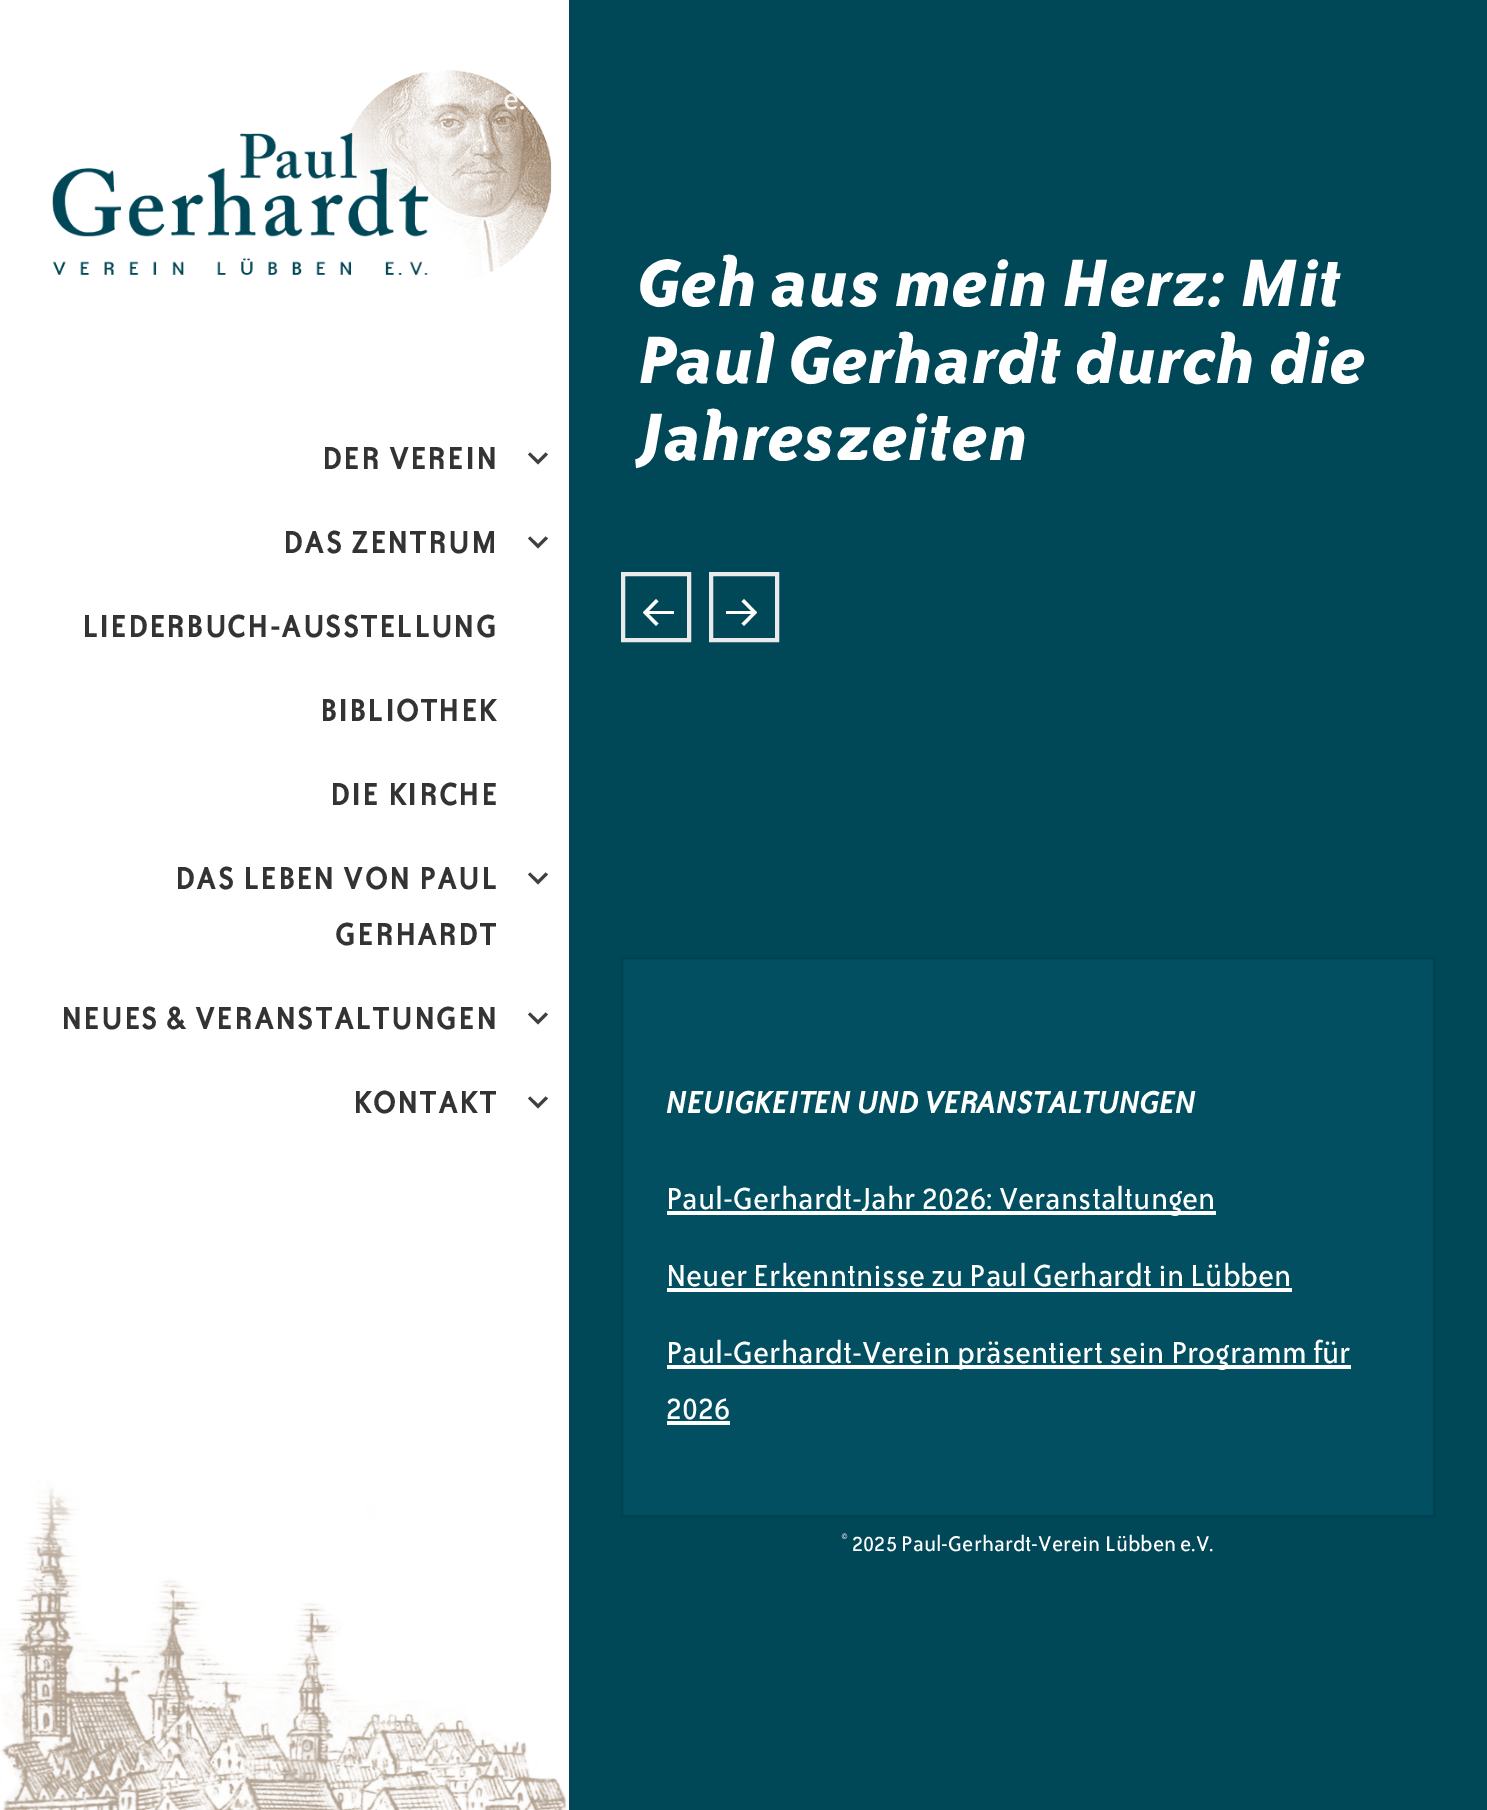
%!PS
<< /PageSize [1487 1810] >> setpagedevice
/rgb { dup -16 bitshift 255 div exch dup -8 bitshift 255 and 255 div exch 255 and 255 div setrgbcolor } def
/font { [ exch dup neg 0 0 3 -1 roll 0 0 ] selectfont } def
/text { moveto show } def
/picture { 5 dict begin { /h /w /y /x /name } { exch def } forall
  gsave x y translate w h scale
  w h 8 [w 0 0 h 0 0] name (r) file false 3 colorimage grestore end } def
0 1810 translate 1 -1 scale
4 setmiterlimit
/s1 { /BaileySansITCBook-Regular 35 font 16#F5F2EF rgb } def
/s2 { /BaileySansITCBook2-BoldItalic 77 font 16#FFFFFF rgb } def
/s3 { /BaileySansITCBook-BoldItalic 35 font 16#FFFFFF rgb } def
/s4 { /BaileySansITCBook-Regular 35 font 16#FFFFFF rgb } def
/s5 { /BaileySansITCBook-Regular 24.5 font 16#FFFFFF rgb } def
16#FFFFFF rgb
0 0 1487 1810 rectfill
(pic1.raw) 52 70 500 208 picture
s1
(e.) 503 109 text
/BaileySansITCBook-Bold 35 font
16#333333 rgb
322 469 moveto 1.75 0 (DER VEREIN) ashow
16#3F3F3F rgb
545.5 452.5 moveto 548 454.5 lineto 538 464.5 lineto 528 454.5 lineto 530 452.5 lineto 538 460 lineto closepath fill
16#333333 rgb
283 553 moveto 1.75 0 (DAS ZENTRUM) ashow
16#3F3F3F rgb
545.5 536.5 moveto 548 538.5 lineto 538 548.5 lineto 528 538.5 lineto 530 536.5 lineto 538 544 lineto closepath fill
16#333333 rgb
82 637 moveto 1.75 0 (LIEDERBUCH-AUSSTELLUNG) ashow
320 721 moveto 1.75 0 (BIBLIOTHEK) ashow
330 805 moveto 1.75 0 (DIE KIRCHE) ashow
175 889 moveto 1.75 0 (DAS LEBEN VON PAUL) ashow
335 945 moveto 1.75 0 (GERHARDT) ashow
16#3F3F3F rgb
545.5 872.5 moveto 548 874.5 lineto 538 884.5 lineto 528 874.5 lineto 530 872.5 lineto 538 880 lineto closepath fill
16#333333 rgb
61 1029 moveto 1.75 0 (NEUES & VERANSTALTUNGEN) ashow
16#3F3F3F rgb
545.5 1012.5 moveto 548 1014.5 lineto 538 1024.5 lineto 528 1014.5 lineto 530 1012.5 lineto 538 1020 lineto closepath fill
16#333333 rgb
353 1113 moveto 1.75 0 (KONTAKT) ashow
16#3F3F3F rgb
545.5 1096.5 moveto 548 1098.5 lineto 538 1108.5 lineto 528 1098.5 lineto 530 1096.5 lineto 538 1104 lineto closepath fill
16#004757 rgb
569 0 918 1810 rectfill
s2
(Geh aus mein Herz: Mit) 638 306 text
(Paul Gerhardt durch die) 638 383 text
(Jahreszeiten) 638 460 text
16#EAEAEA rgb
4 setlinewidth
623 574 66 66 rectstroke
16#FFFFFF rgb
656 599 moveto 658.5 601.5 lineto 649 611 lineto 674 611 lineto 674 614 lineto 649 614 lineto 658.5 623.5 lineto 656 626 lineto 643 612.5 lineto closepath fill
16#EAEAEA rgb
711 574 66 66 rectstroke
16#FFFFFF rgb
744 599 moveto 757 612.5 lineto 744 626 lineto 741.5 623.5 lineto 751 614 lineto 726 614 lineto 726 611 lineto 751 611 lineto 741.5 601.5 lineto closepath fill
16#014F60 rgb
622 958 moveto 1434 958 lineto 1434 1516 lineto 622 1516 lineto closepath gsave fill grestore
16#004251 rgb
2 setlinewidth
stroke
s3
(NEUIGKEITEN UND VERANSTALTUNGEN) 666 1113 text
667 1211 549 4 rectfill
s4
(Paul-Gerhardt-Jahr 2026: Veranstaltungen) 666 1209 text
(Neuer Erkenntnisse zu Paul Gerhardt in Lübben) 666 1286 text
667 1288 625 4 rectfill
667 1365 684 4 rectfill
(Paul-Gerhardt-Verein präsentiert sein Programm für) 666 1363 text
(2026) 666 1419 text
667 1421 63 4 rectfill
s5
(© 2025 Paul-Gerhardt-Verein Lübben e.V.) 841 1551 text
(pic2.raw) 0 1480 567 330 picture
showpage
